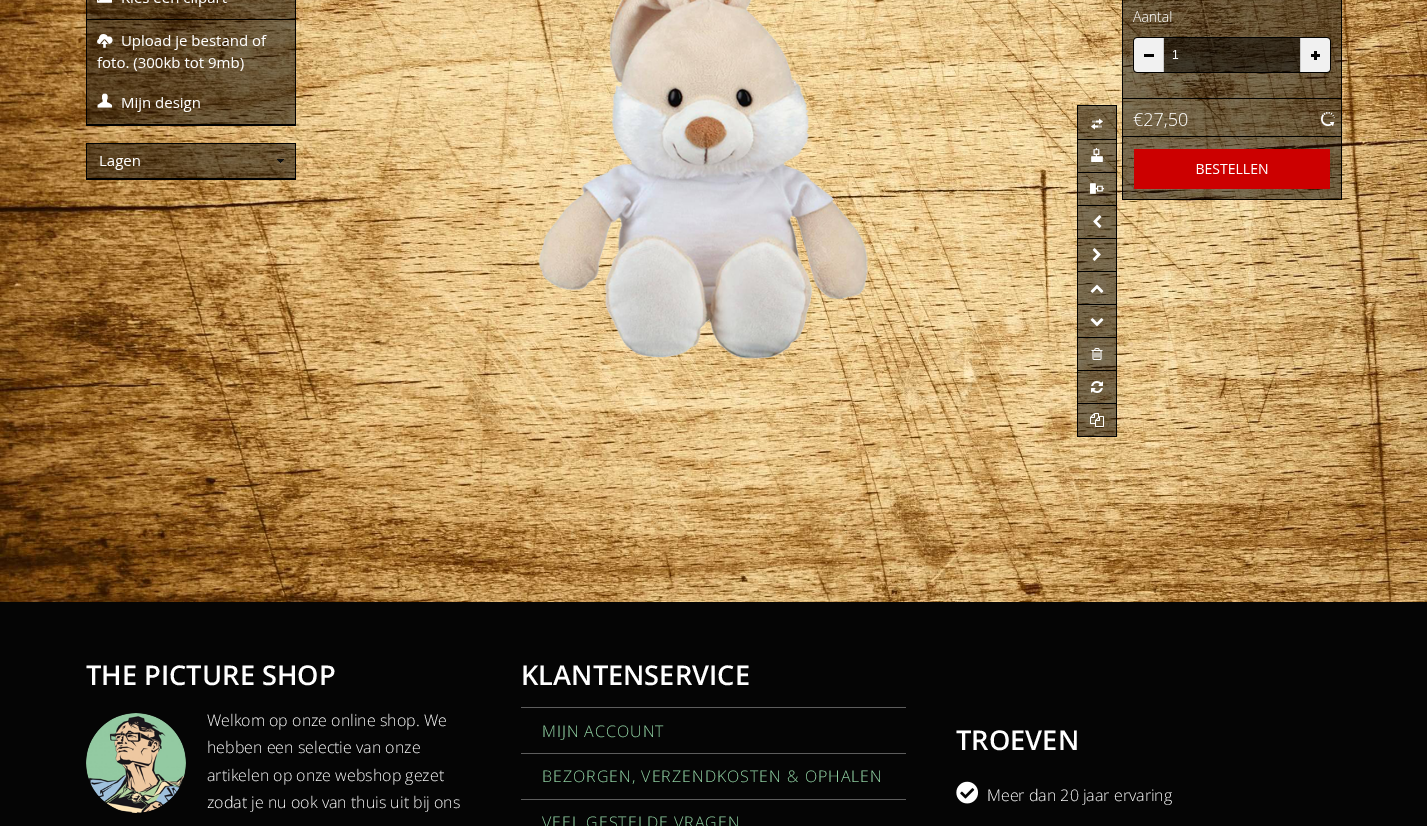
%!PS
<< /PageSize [1427 826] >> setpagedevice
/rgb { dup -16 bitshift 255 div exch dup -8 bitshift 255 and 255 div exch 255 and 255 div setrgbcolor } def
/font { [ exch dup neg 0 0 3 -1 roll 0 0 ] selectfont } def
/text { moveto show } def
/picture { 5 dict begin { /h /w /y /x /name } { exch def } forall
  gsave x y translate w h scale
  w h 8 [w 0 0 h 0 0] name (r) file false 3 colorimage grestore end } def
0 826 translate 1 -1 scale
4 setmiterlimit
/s1 { /OpenSans-SemiBold 27.25 font 16#FFFFFF rgb } def
/s2 { /OpenSans-Light 16 font 16#FFFFFF rgb } def
16#FFFFFF rgb
0 0 1427 826 rectfill
(pic1.raw) 0 0 1427 602 picture
(pic2.raw) 86 0 1256 437 picture
16#050505 rgb
0 602 1427 224 rectfill
s1
(THE PICTURE SHOP) 86 685 text
(pic3.raw) 86 713 100 100 picture
s2
(Welkom op onze online shop. We) 207 726 text
(hebben een selectie van onze) 207 753 text
(artikelen op onze webshop gezet) 207 781 text
(zodat je nu ook van thuis uit bij ons) 207 808 text
s1
(KLANTENSERVICE) 521 685 text
16#5D5D5D rgb
521 707 385 1 rectfill
/OpenSans-Light 16 font
16#90D1A2 rgb
542 737 moveto 1 0 (MIJN ACCOUNT) ashow
16#5D5D5D rgb
521 753 385 1 rectfill
16#90D1A2 rgb
542 782 moveto 1 0 (BEZORGEN, VERZENDKOSTEN & OPHALEN) ashow
16#5D5D5D rgb
521 799 385 1 rectfill
16#90D1A2 rgb
542 828 moveto 1 0 (VEEL GESTELDE VRAGEN) ashow
s1
(TROEVEN) 956 750 text
(pic4.raw) 956 781 23 23 picture
s2
(Meer dan 20 jaar ervaring) 987 801 text
showpage
